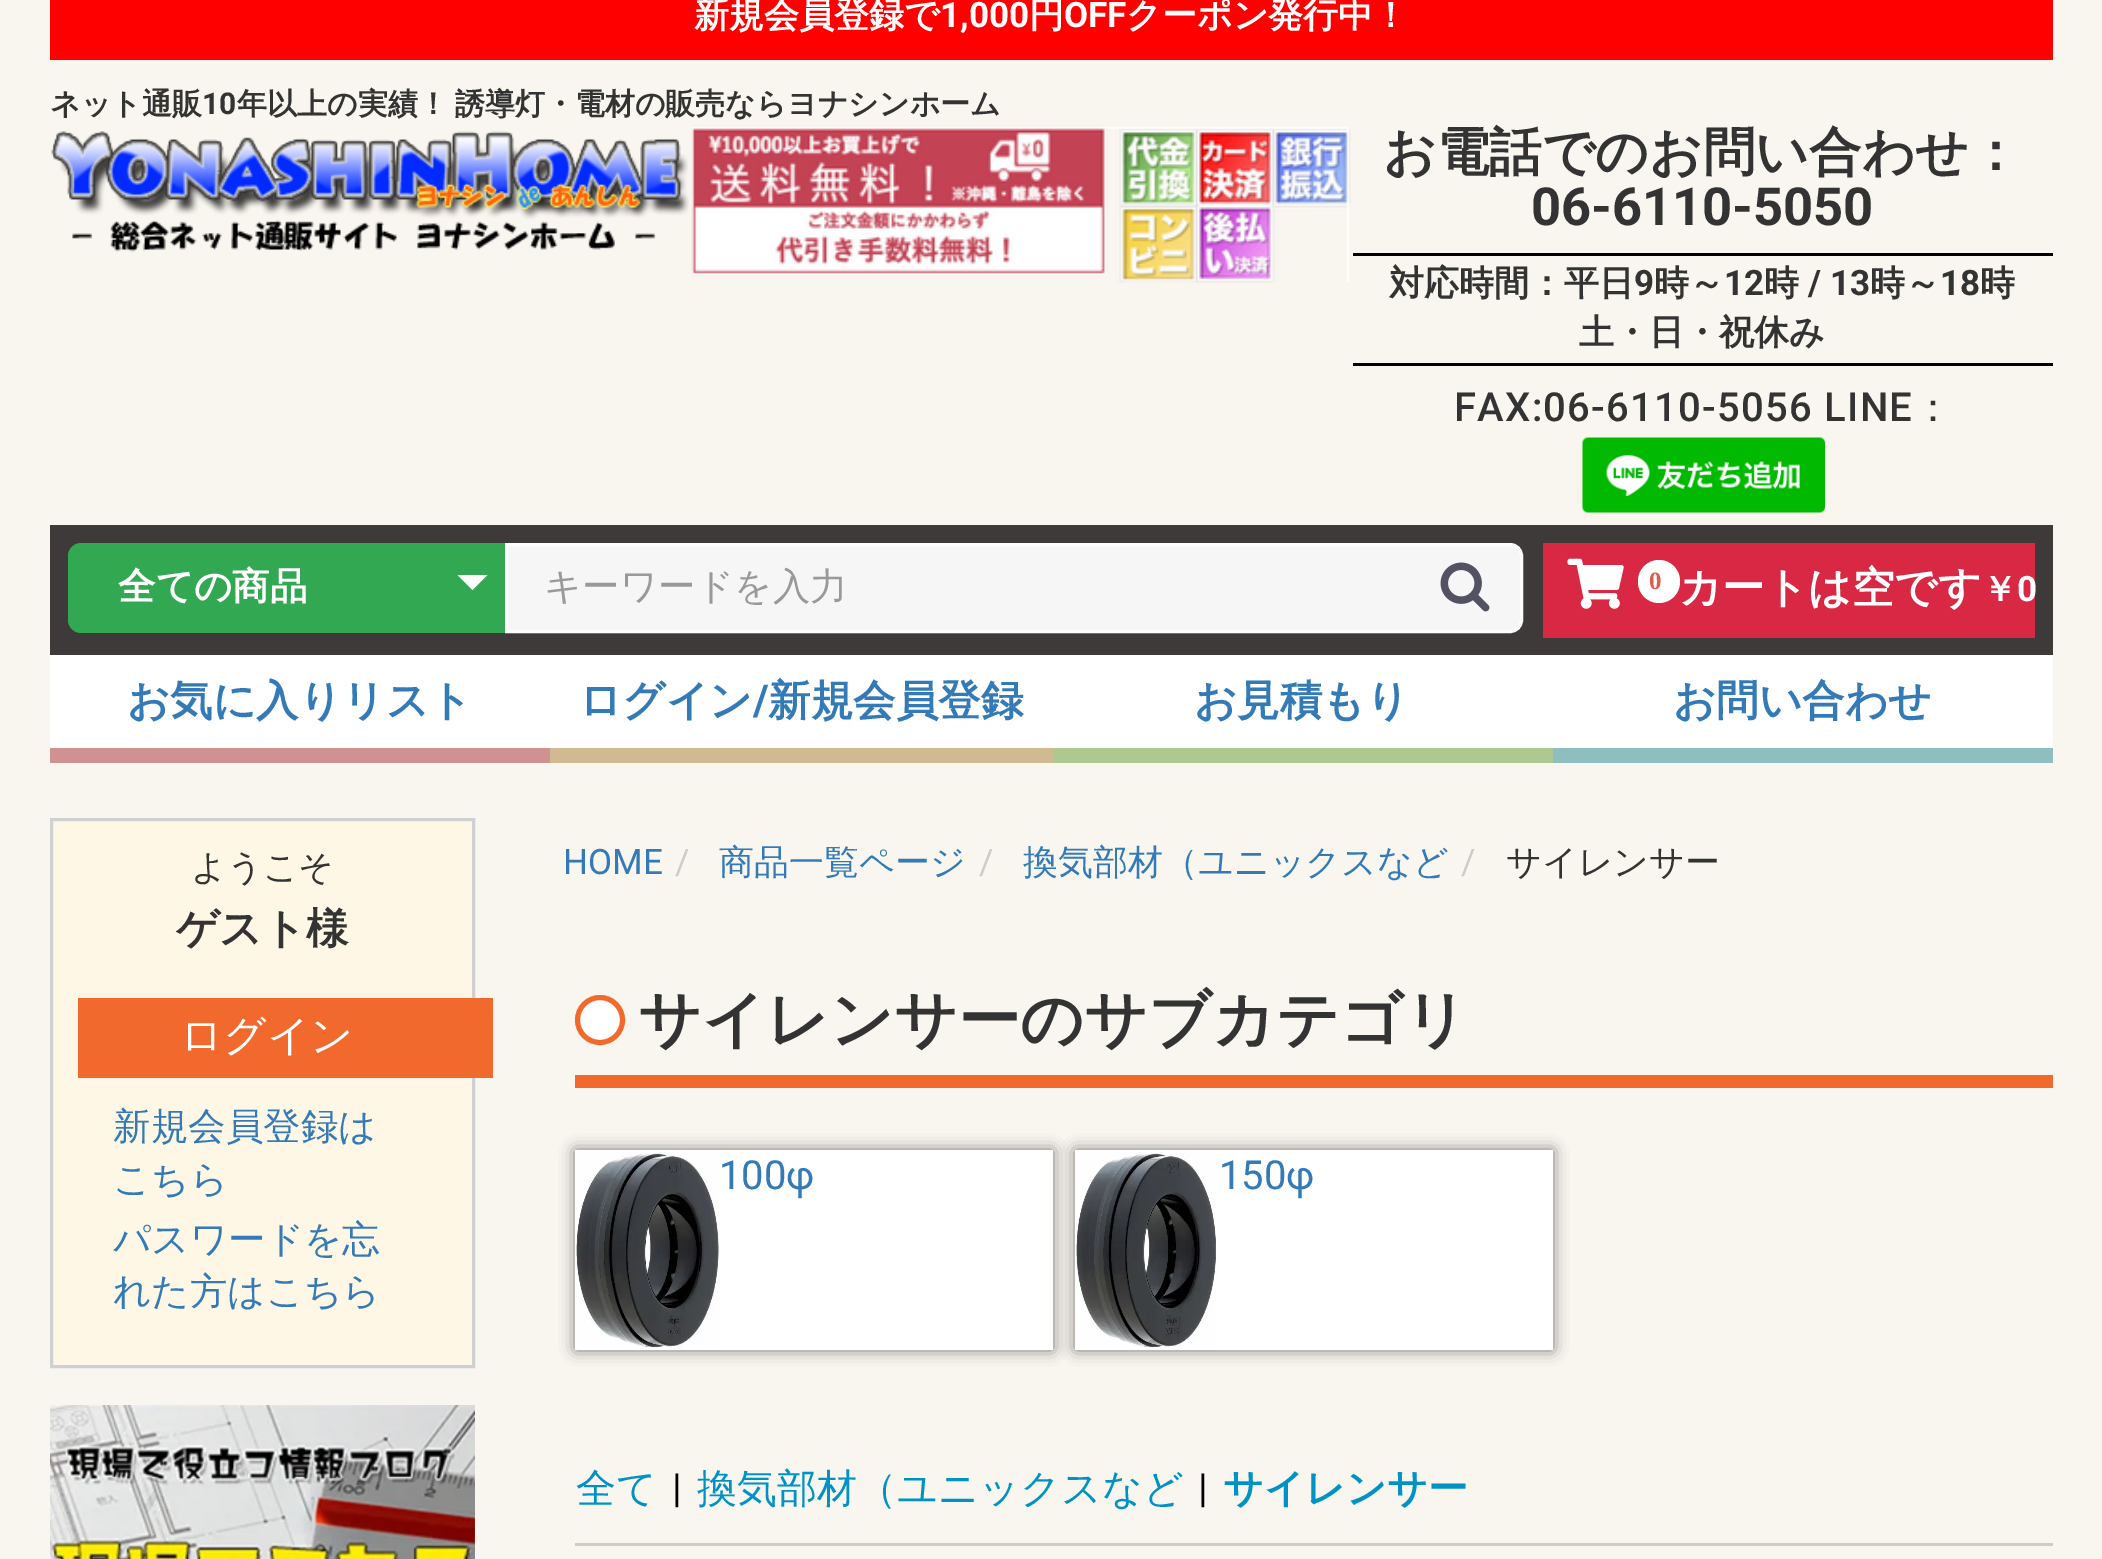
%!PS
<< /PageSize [2102 1559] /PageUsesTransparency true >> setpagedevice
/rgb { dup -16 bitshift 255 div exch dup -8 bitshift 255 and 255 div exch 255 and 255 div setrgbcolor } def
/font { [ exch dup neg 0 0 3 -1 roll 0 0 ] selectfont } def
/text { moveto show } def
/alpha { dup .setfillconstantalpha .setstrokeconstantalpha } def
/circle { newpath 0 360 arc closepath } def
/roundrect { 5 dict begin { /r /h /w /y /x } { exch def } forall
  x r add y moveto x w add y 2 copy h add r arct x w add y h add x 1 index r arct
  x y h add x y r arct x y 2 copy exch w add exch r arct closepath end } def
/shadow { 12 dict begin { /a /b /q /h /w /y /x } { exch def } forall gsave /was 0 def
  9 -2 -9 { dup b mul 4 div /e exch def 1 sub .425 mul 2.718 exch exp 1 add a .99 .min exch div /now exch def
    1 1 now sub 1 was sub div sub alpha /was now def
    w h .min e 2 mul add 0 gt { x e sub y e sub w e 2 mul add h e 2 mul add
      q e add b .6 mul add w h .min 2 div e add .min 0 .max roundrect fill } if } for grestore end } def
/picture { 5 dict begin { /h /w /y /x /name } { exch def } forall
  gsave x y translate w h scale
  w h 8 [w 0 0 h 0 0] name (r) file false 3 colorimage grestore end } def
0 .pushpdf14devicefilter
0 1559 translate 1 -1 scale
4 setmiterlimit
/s1 { /WenQuanYiZenHei-Bold 35 font 16#FFFFFF rgb } def
/s2 { /Roboto-Bold 35 font 16#FFFFFF rgb } def
/s3 { /WenQuanYiZenHei-Bold 30 font 16#333333 rgb } def
/s4 { /Roboto-Bold 30 font 16#333333 rgb } def
/s5 { /WenQuanYiZenHei-Bold 52.5 font 16#333333 rgb } def
/s6 { /Roboto-Bold 52.5 font 16#333333 rgb } def
/s7 { /WenQuanYiZenHei-Bold 35 font 16#333333 rgb } def
/s8 { /Roboto-Bold 35 font 16#333333 rgb } def
/s9 { /WenQuanYiZenHei-Bold 37.5 font 16#FFFFFF rgb } def
/s10 { /WenQuanYiZenHei-Medium 37.5 font 16#999999 rgb } def
/s11 { /LiberationSerif-Bold 25 font 16#DE5D50 rgb } def
/s12 { /WenQuanYiZenHei-Bold 42.5 font 16#FFFFFF rgb } def
/s13 { /WenQuanYiZenHei-Bold 42.5 font 16#337AB7 rgb } def
/s14 { /Roboto-Bold 42.5 font 16#337AB7 rgb } def
/s15 { /WenQuanYiZenHei-Medium 35 font 16#333333 rgb } def
/s16 { /WenQuanYiZenHei-Bold 42.5 font 16#333333 rgb } def
/s17 { /WenQuanYiZenHei-Medium 42.5 font 16#FFFFFF rgb } def
/s18 { /WenQuanYiZenHei-Medium 37.5 font 16#337AB7 rgb } def
/s19 { /Roboto-Regular 35 font 16#337AB7 rgb } def
/s20 { /Roboto-Regular 35 font 16#CCCCCC rgb } def
/s21 { /WenQuanYiZenHei-Medium 35 font 16#337AB7 rgb } def
/s22 { /WenQuanYiZenHei-Bold 62.5 font 16#333333 rgb } def
/s23 { /Roboto-Regular 40 font 16#337AB7 rgb } def
/s24 { /WenQuanYiZenHei-Medium 40 font 16#0092C4 rgb } def
/s25 { /Roboto-Regular 40 font 16#000000 rgb } def
/s26 { /WenQuanYiZenHei-Bold 40 font 16#0092C4 rgb } def
16#F9F6F0 rgb
0 0 2102 1559 rectfill
16#FF0000 rgb
50 0 2003 60 rectfill
s1
(新規会員登録で) 694 27 text
s2
(1,000) 940 27 text
s1
(円) 1029 27 text
s2
(OFF) 1064 27 text
s1
(クーポン発行中！) 1126 27 text
s3
(ネット通販) 50 114 text
s4
(10) 202 114 text
/WenQuanYiZenHei-Bold 30 font
237 114 moveto -2 0 32 (年以上の実績！ 誘導灯・電材の販売ならヨナシンホーム) widthshow
(pic1.raw) 51 131 638 121 picture
(pic2.raw) 691 125 660 158 picture
s5
(お電話でのお問い合わせ：) 1383 170 text
s6
(06-6110-5050) 1531 225 text
16#000000 rgb
1353 253 700 3 rectfill
1353 363 700 3 rectfill
s7
(対応時間：平日) 1389 295 text
s8
(9) 1634 295 text
s7
(時～) 1654 295 text
s8
(12) 1724 295 text
s7
(時) 1764 295 text
s8
(/ 13) 1808 295 text
s7
(時～) 1870 295 text
s8
(18) 1940 295 text
s7
(時) 1980 295 text
(土・日・祝休み) 1579 344 text
/Roboto-Medium 40 font
1454 421 moveto 1.25 0 (FAX:06-6110-5056 LINE) ashow
/WenQuanYiZenHei-Medium 40 font
1913 421 moveto 1.25 0 (：) ashow
(pic3.raw) 1582 437 243 76 picture
16#3E3A39 rgb
50 525 2003 130 rectfill
16#32A852 rgb
81 543 moveto 505 543 lineto 505 633 lineto 81 633 lineto 74 633 68 627 68 620 curveto 68 556 lineto 68 549 74 543 81 543 curveto closepath fill
s9
(全ての商品) 118 599 text
457.5 575 moveto 487.5 575 lineto 472.5 590 lineto closepath fill
16#F6F6F6 rgb
506.5 544.5 moveto 1510 544.5 lineto 1516.5 544.5 1521.5 549.5 1521.5 556 curveto 1521.5 620 lineto 1521.5 626.5 1516.5 631.5 1510 631.5 curveto 506.5 631.5 lineto closepath gsave fill grestore
16#FFFFFF rgb
3 setlinewidth
stroke
s10
(キーワードを入力) 544 599 text
(pic4.raw) 1440 562 50 50 picture
16#D82844 rgb
1543 543 492 95 rectfill
(pic5.raw) 1567 558 57 51 picture
16#FFFFFF rgb
1638 560 42 43 21 roundrect fill
s11
(0) 1649 589 text
s12
(カートは空です) 1679 602 text
s1
(￥) 1982 601 text
s2
(0) 2017 601 text
50 655 2003 93 rectfill
16#D09191 rgb
50 748 500 15 rectfill
s13
(お気に入りリスト) 127 715 text
16#D0BA92 rgb
550 748 503 15 rectfill
s13
(ログイン) 579 715 text
s14
(/) 753 715 text
s13
(新規会員登録) 768 715 text
16#AEC890 rgb
1053 748 500 15 rectfill
s13
(お見積もり) 1194 715 text
16#8EBEC0 rgb
1553 748 500 15 rectfill
s13
(お問い合わせ) 1673 715 text
16#FFF7E5 rgb
51.5 819.5 moveto 473.5 819.5 lineto 473.5 1366.5 lineto 51.5 1366.5 lineto closepath gsave fill grestore
16#D0D0D2 rgb
stroke
s15
(ようこそ) 191 879 text
s16
(ゲスト様) 176 943 text
16#F2692E rgb
78 998 415 80 rectfill
s17
(ログイン) 180 1050 text
s18
(新規会員登録は) 113 1139 text
(こちら) 113 1192 text
(パスワードを忘) 113 1252 text
(れた方はこちら) 113 1304 text
(pic6.raw) 50 1405 425 154 picture
s19
(HOME) 563 874 text
s20
(/) 675 874 text
s21
(商品一覧ページ) 719 874 text
s20
(/) 979 874 text
s21
(換気部材（ユニックスなど) 1023 874 text
s20
(/) 1461 874 text
s15
(サイレンサー) 1506 874 text
16#F2692E rgb
575 1075 1478 13 rectfill
16#FFFFFF rgb
600 1020 22.5 circle gsave fill grestore
16#F2692E rgb
5 setlinewidth
stroke
s22
(サイレンサーのサブカテゴリ) 638 1041 text
16#000000 rgb
575 1150 478 200 0 7.5 0.5 shadow
16#FFFFFF rgb
575 1150 478 200 rectfill
(pic7.raw) 576 1150 144 200 picture
s23
(100φ) 719 1189 text
16#000000 rgb
1075 1150 478 200 0 7.5 0.5 shadow
16#FFFFFF rgb
1075 1150 478 200 rectfill
(pic8.raw) 1076 1150 141 200 picture
s23
(150φ) 1219 1189 text
s24
(全て) 576 1502 text
s25
(|) 672 1502 text
s24
(換気部材（ユニックスなど) 697 1502 text
s25
(|) 1198 1502 text
s26
(サイレンサー) 1223 1502 text
16#CCCCCC rgb
575 1543 1478 3 rectfill
.poppdf14devicefilter showpage
